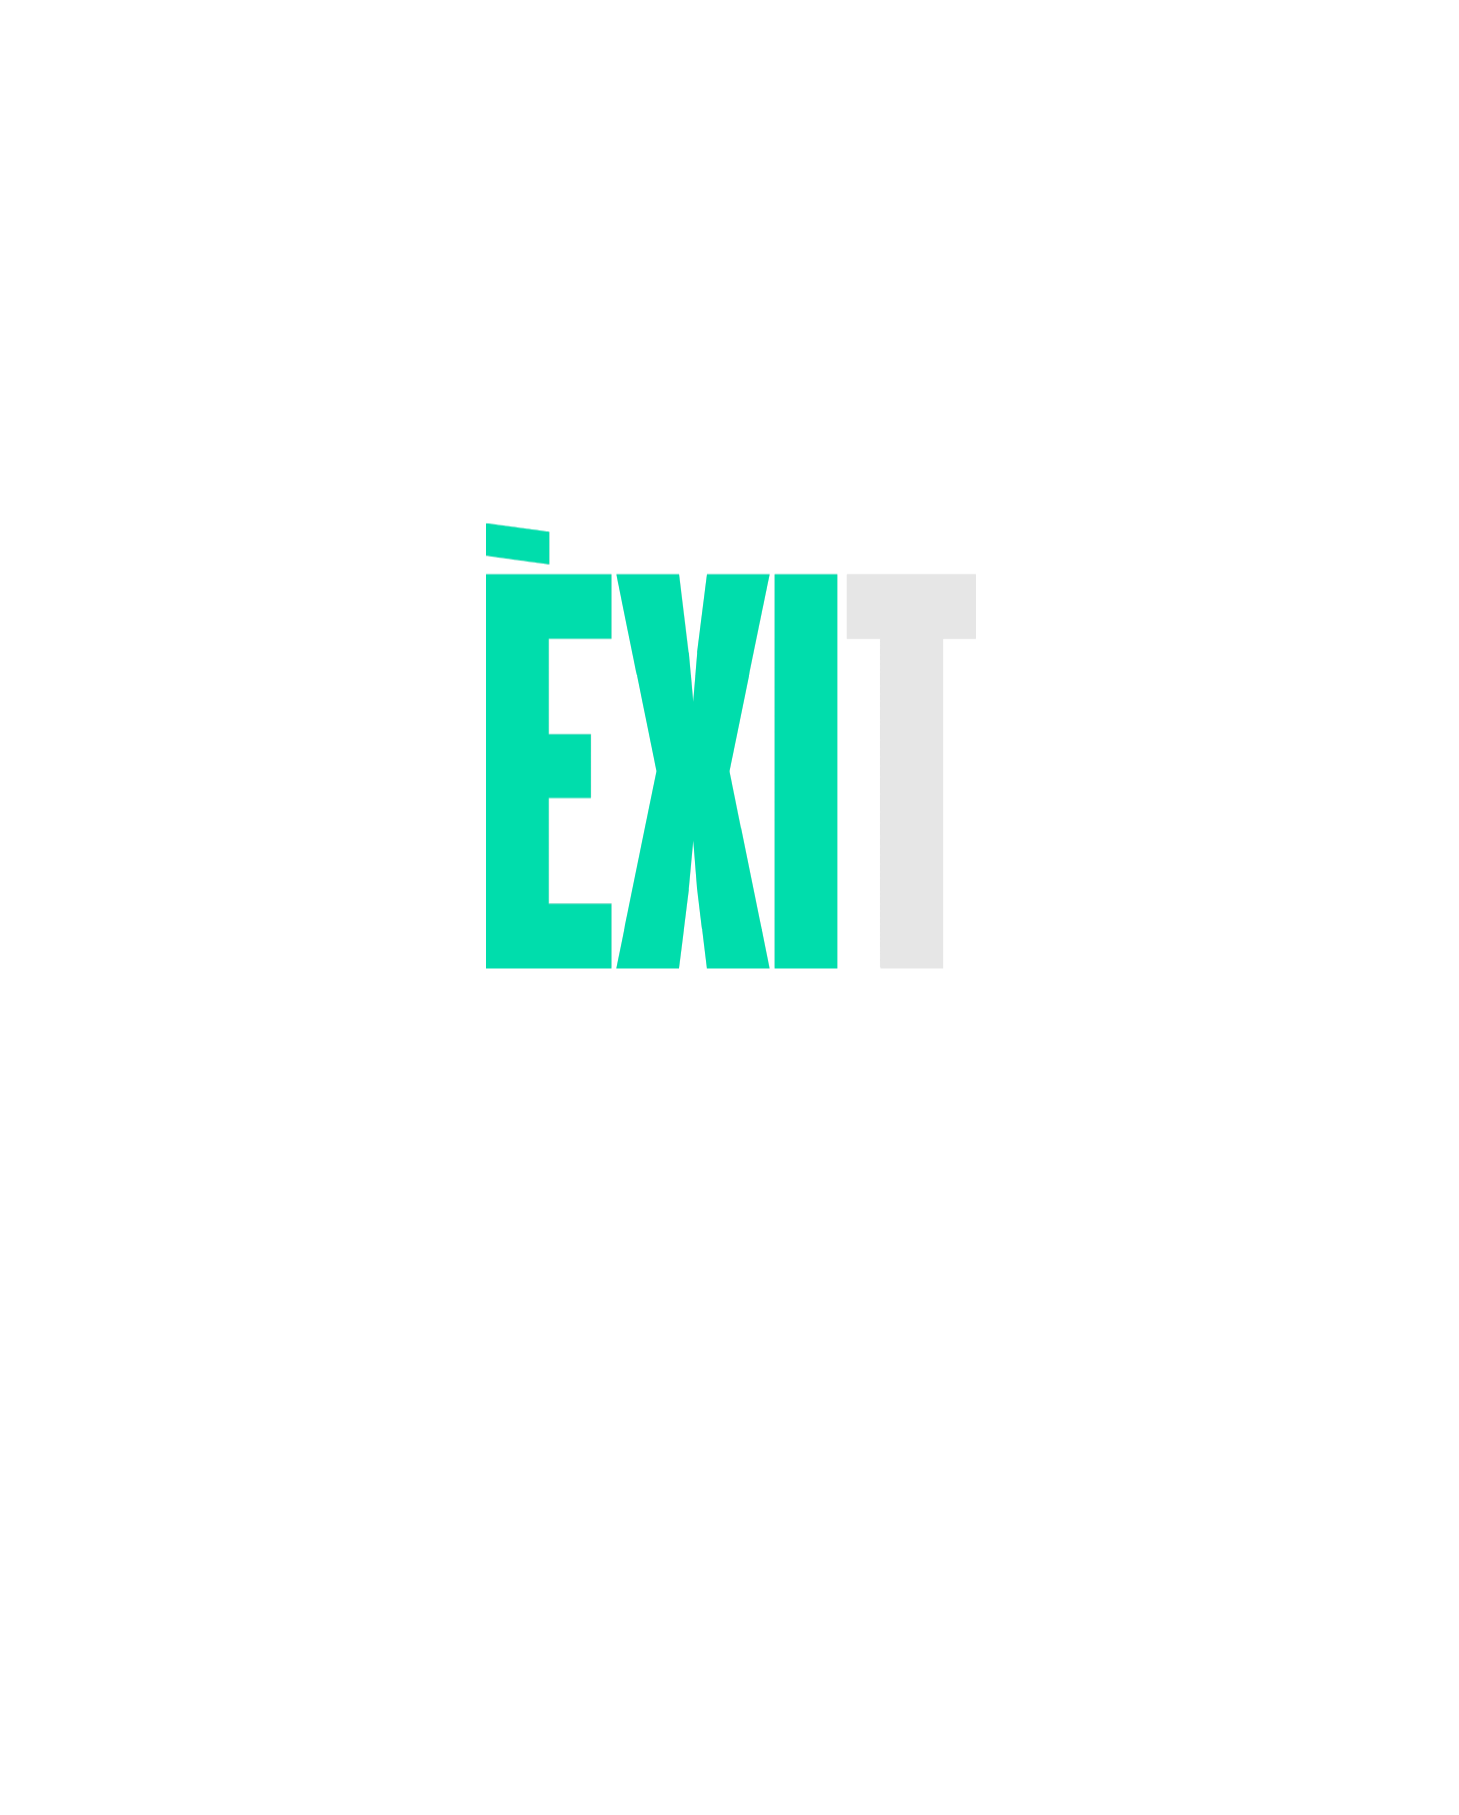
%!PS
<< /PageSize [1459 1815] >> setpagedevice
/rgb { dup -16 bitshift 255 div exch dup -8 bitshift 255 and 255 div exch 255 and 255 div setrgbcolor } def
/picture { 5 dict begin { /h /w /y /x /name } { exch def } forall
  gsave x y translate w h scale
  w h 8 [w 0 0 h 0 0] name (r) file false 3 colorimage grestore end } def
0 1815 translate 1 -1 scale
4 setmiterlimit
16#FFFFFF rgb
0 0 1459 1815 rectfill
(pic2.raw) 486 523 490 445 picture
(pic1.raw) 486 522 490 447 picture
showpage
